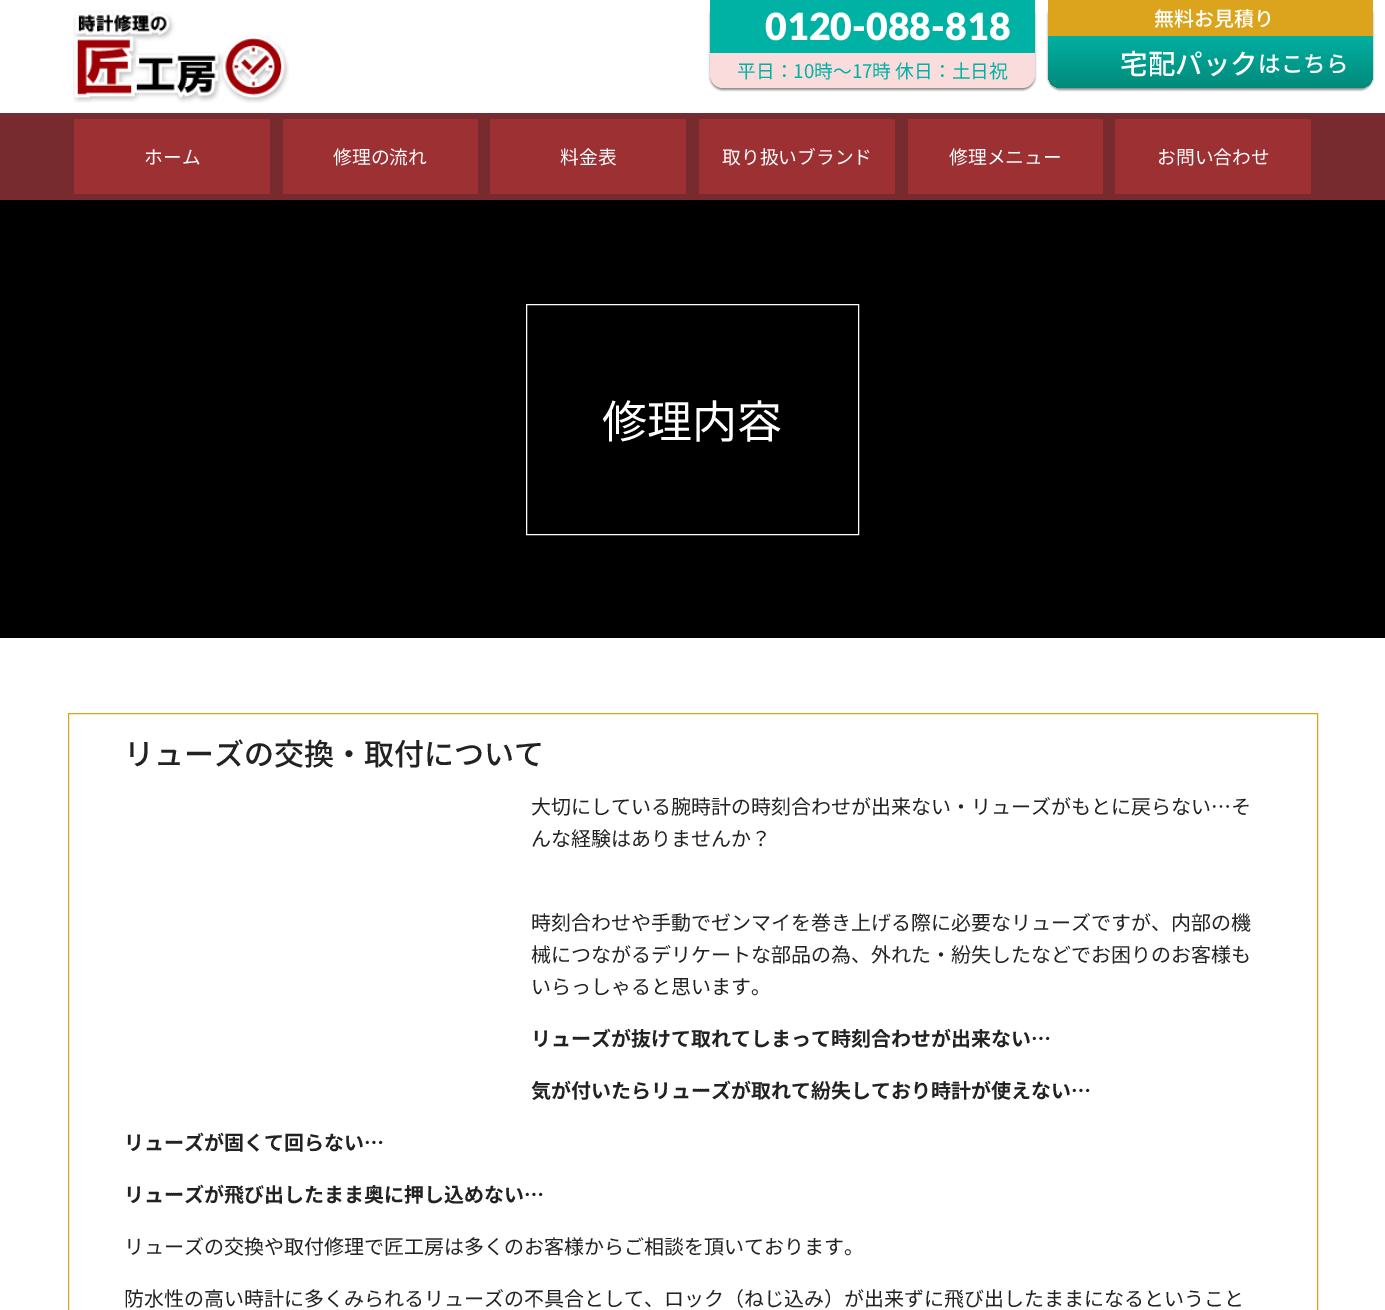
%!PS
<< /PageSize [1385 1310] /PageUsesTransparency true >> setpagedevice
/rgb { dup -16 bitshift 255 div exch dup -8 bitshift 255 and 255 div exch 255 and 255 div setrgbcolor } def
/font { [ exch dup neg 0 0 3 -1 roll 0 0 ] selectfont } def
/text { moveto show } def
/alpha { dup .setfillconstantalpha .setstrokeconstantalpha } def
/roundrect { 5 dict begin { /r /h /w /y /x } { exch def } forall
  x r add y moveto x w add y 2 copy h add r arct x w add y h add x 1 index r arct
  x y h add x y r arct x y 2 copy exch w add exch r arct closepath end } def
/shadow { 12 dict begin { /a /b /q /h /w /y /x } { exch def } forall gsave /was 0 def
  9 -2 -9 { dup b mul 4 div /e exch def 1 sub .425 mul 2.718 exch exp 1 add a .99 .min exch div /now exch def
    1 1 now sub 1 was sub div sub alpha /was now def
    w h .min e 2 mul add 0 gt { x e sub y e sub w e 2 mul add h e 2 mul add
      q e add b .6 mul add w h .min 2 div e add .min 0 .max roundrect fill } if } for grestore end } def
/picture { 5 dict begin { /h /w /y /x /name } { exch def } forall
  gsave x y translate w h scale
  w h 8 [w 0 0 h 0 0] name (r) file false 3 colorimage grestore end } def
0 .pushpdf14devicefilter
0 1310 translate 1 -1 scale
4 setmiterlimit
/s1 { /Lato-Black 37.5 font 16#FFFFFF rgb } def
/s2 { /NotoSansJP-Regular 18.75 font 16#00B2A3 rgb } def
/s3 { /NotoSansJP-Medium 20 font 16#FFFFFF rgb } def
/s4 { /NotoSansJP-Medium 27.5 font 16#FFFFFF rgb } def
/s5 { /NotoSansJP-Medium 22.5 font 16#FFFFFF rgb } def
/s6 { /NotoSansJP-Regular 18.75 font 16#FFFFFF rgb } def
/s7 { /NotoSansJP-Regular 45 font 16#FFFFFF rgb } def
/s8 { /NotoSansJP-Medium 30 font 16#222222 rgb } def
/s9 { /NotoSansJP-Regular 20 font 16#222222 rgb } def
/s10 { /NotoSansJP-Bold 20 font 16#222222 rgb } def
16#FFFFFF rgb
0 0 1385 1310 rectfill
(pic1.raw) 73 10 216 93 picture
16#000000 rgb
710 3 325 87 13 1 0.45 shadow
16#00B2A3 rgb
710 0 325 53 rectfill
s1
(0120-088-818) 765 40 text
16#FBDCDC rgb
710 53 moveto 1035 53 lineto 1035 75 lineto 1035 82 1029 88 1022 88 curveto 723 88 lineto 716 88 710 82 710 75 curveto closepath fill
s2
(平日：10時～17時 休日：土日祝) 737 78 text
16#000000 rgb
1048 3 325 87 13 1 0.45 shadow
16#DBA41C rgb
1048 0 325 36 rectfill
s3
(無料お見積り) 1154 26 text
gsave 1048 36 moveto 1373 36 lineto 1373 75 lineto 1373 82 1367 88 1360 88 curveto 1061 88 lineto 1054 88 1048 82 1048 75 curveto closepath clip newpath
<< /ShadingType 2 /ColorSpace /DeviceRGB /Coords [1210 36 1210 88] /Extend [true true] /Function << /FunctionType 2 /Domain [0 1] /C0 [0 0.69 0.631] /C1 [0.008 0.541 0.482] /N 1 >> >> shfill grestore
s4
(宅配パック) 1120 74 text
s5
(はこちら) 1258 72 text
16#782B2E rgb
0 113 1385 87 rectfill
16#9C3033 rgb
74 119 196 75 rectfill
s6
(ホーム) 144 164 text
16#9C3033 rgb
283 119 195 75 rectfill
s6
(修理の流れ) 333 164 text
16#9C3033 rgb
490 119 196 75 rectfill
s6
(料金表) 560 164 text
16#9C3033 rgb
699 119 196 75 rectfill
s6
(取り扱いブランド) 722 164 text
16#9C3033 rgb
908 119 195 75 rectfill
s6
(修理メニュー) 949 164 text
16#9C3033 rgb
1115 119 196 75 rectfill
s6
(お問い合わせ) 1157 164 text
16#000000 rgb
0 200 1385 438 rectfill
16#FFFFFF rgb
526.5 304.5 332 230 rectstroke
s7
(修理内容) 602 438 text
16#DBA41C rgb
68.5 713.5 1249 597 rectstroke
s8
(リューズの交換・取付について) 124 765 text
s9
(大切にしている腕時計の時刻合わせが出来ない・リューズがもとに戻らない…そ) 531 814 text
(んな経験はありませんか？) 531 846 text
(時刻合わせや手動でゼンマイを巻き上げる際に必要なリューズですが、内部の機) 531 930 text
(械につながるデリケートな部品の為、外れた・紛失したなどでお困りのお客様も) 531 962 text
(いらっしゃると思います。) 531 994 text
s10
(リューズが抜けて取れてしまって時刻合わせが出来ない…) 531 1046 text
(気が付いたらリューズが取れて紛失しており時計が使えない…) 531 1098 text
(リューズが固くて回らない…) 124 1150 text
(リューズが飛び出したまま奥に押し込めない…) 124 1202 text
s9
(リューズの交換や取付修理で匠工房は多くのお客様からご相談を頂いております。) 124 1254 text
(防水性の高い時計に多くみられるリューズの不具合として、ロック（ねじ込み）が出来ずに飛び出したままになるということ) 124 1306 text
.poppdf14devicefilter showpage
